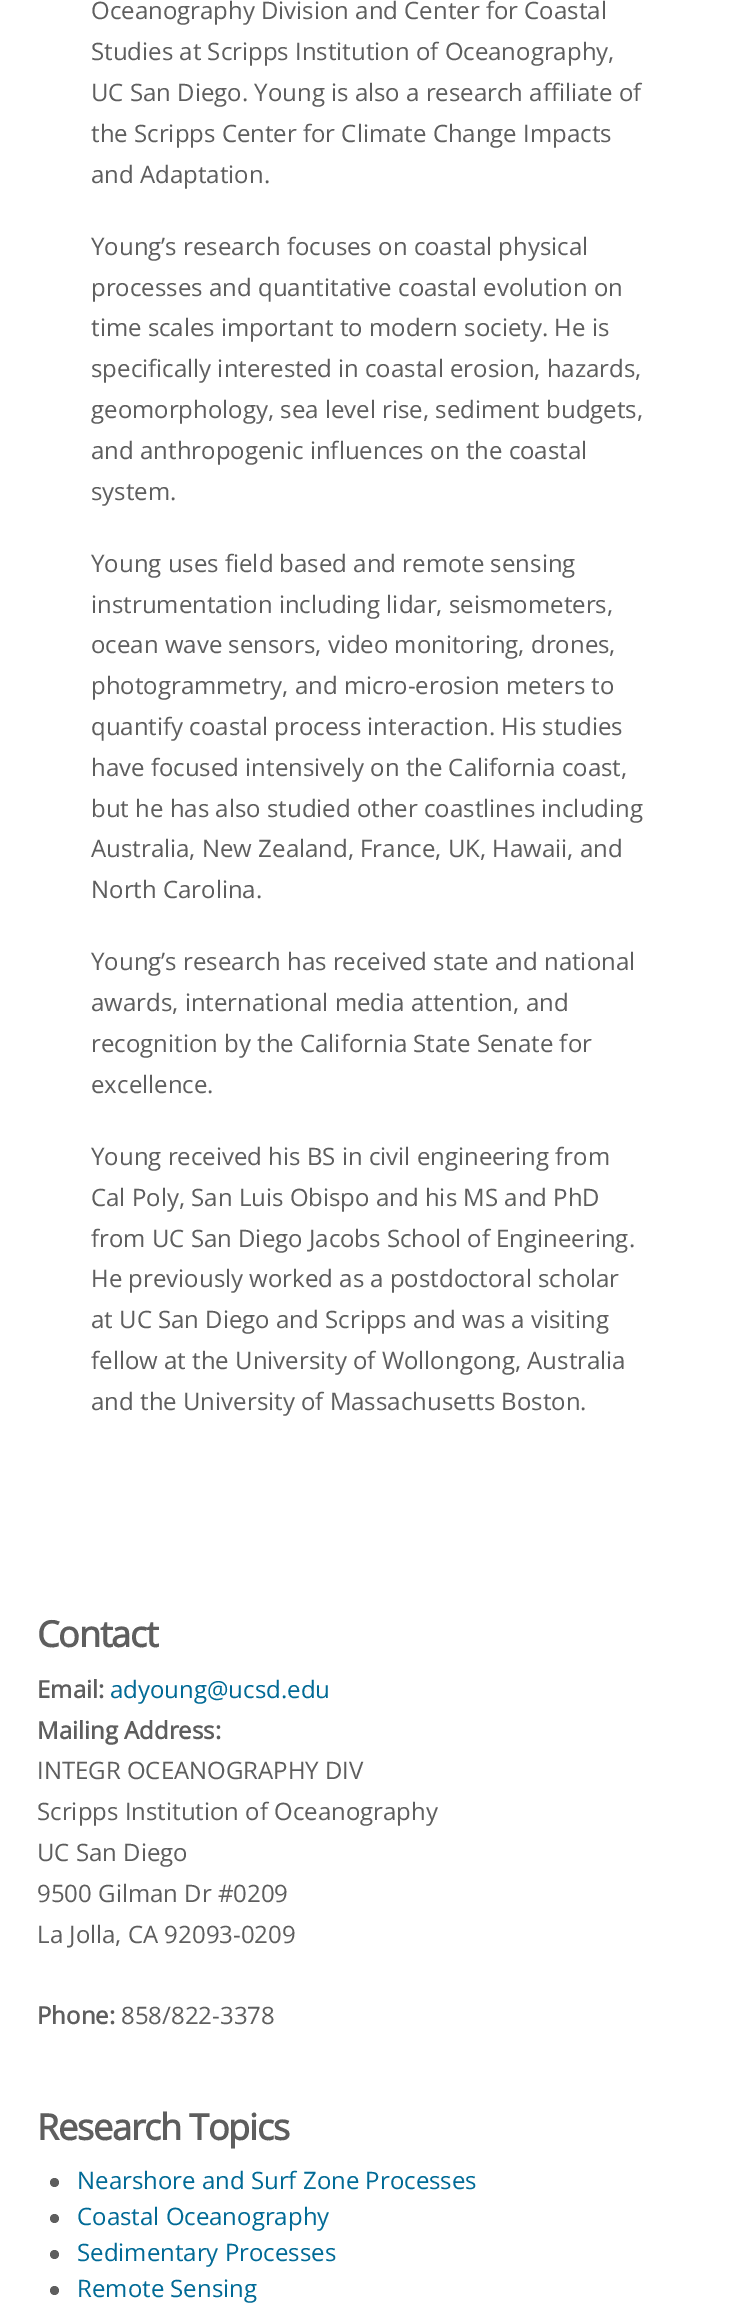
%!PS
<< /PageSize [737 2312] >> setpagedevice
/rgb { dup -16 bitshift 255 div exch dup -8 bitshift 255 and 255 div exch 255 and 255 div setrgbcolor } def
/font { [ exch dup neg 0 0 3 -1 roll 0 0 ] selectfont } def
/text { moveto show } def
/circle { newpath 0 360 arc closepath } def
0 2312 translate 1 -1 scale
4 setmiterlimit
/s1 { /OpenSans-Regular 24 font 16#5E5E5E rgb } def
/s2 { /OpenSans-Bold 24 font 16#5E5E5E rgb } def
/s3 { /OpenSans-Regular 24 font 16#006A96 rgb } def
16#FFFFFF rgb
0 0 737 2312 rectfill
s1
(Oceanography Division and Center for Coastal) 91 19 text
(Studies at Scripps Institution of Oceanography,) 91 60 text
(UC San Diego. Young is also a research affiliate of) 91 101 text
(the Scripps Center for Climate Change Impacts) 91 142 text
(and Adaptation.) 91 183 text
(Young’s research focuses on coastal physical) 91 255 text
(processes and quantitative coastal evolution on) 91 296 text
(time scales important to modern society. He is) 91 336 text
(specifically interested in coastal erosion, hazards,) 91 377 text
(geomorphology, sea level rise, sediment budgets,) 91 418 text
(and anthropogenic influences on the coastal) 91 459 text
(system.) 91 500 text
(Young uses field based and remote sensing) 91 572 text
(instrumentation including lidar, seismometers,) 91 613 text
(ocean wave sensors, video monitoring, drones,) 91 653 text
(photogrammetry, and micro-erosion meters to) 91 694 text
(quantify coastal process interaction. His studies) 91 735 text
(have focused intensively on the California coast,) 91 776 text
(but he has also studied other coastlines including) 91 817 text
(Australia, New Zealand, France, UK, Hawaii, and) 91 857 text
(North Carolina.) 91 898 text
(Young’s research has received state and national) 91 970 text
(awards, international media attention, and) 91 1011 text
(recognition by the California State Senate for) 91 1052 text
(excellence.) 91 1093 text
(Young received his BS in civil engineering from) 91 1165 text
(Cal Poly, San Luis Obispo and his MS and PhD) 91 1206 text
(from UC San Diego Jacobs School of Engineering.) 91 1247 text
(He previously worked as a postdoctoral scholar) 91 1287 text
(at UC San Diego and Scripps and was a visiting) 91 1328 text
(fellow at the University of Wollongong, Australia) 91 1369 text
(and the University of Massachusetts Boston.) 91 1410 text
/OpenSans-Bold 36 font
37 1647 moveto -1.25 0 (Contact) ashow
s2
(Email:) 37 1698 text
s3
(adyoung@ucsd.edu) 110 1698 text
s2
(Mailing Address:) 37 1739 text
s1
(INTEGR OCEANOGRAPHY DIV) 37 1779 text
(Scripps Institution of Oceanography) 37 1820 text
(UC San Diego) 37 1861 text
(9500 Gilman Dr #0209) 37 1902 text
(La Jolla, CA 92093-0209) 37 1943 text
s2
(Phone:) 37 2024 text
s1
(858/822-3378) 121 2024 text
/OpenSans-Bold 36 font
37 2140 moveto -1.25 0 (Research Topics) ashow
54.5 2182.5 4.5 circle fill
s3
(Nearshore and Surf Zone Processes) 77 2189 text
16#5E5E5E rgb
54.5 2218.5 4.5 circle fill
s3
(Coastal Oceanography) 77 2225 text
16#5E5E5E rgb
54.5 2254.5 4.5 circle fill
s3
(Sedimentary Processes) 77 2261 text
16#5E5E5E rgb
54.5 2290.5 4.5 circle fill
s3
(Remote Sensing) 77 2297 text
showpage
